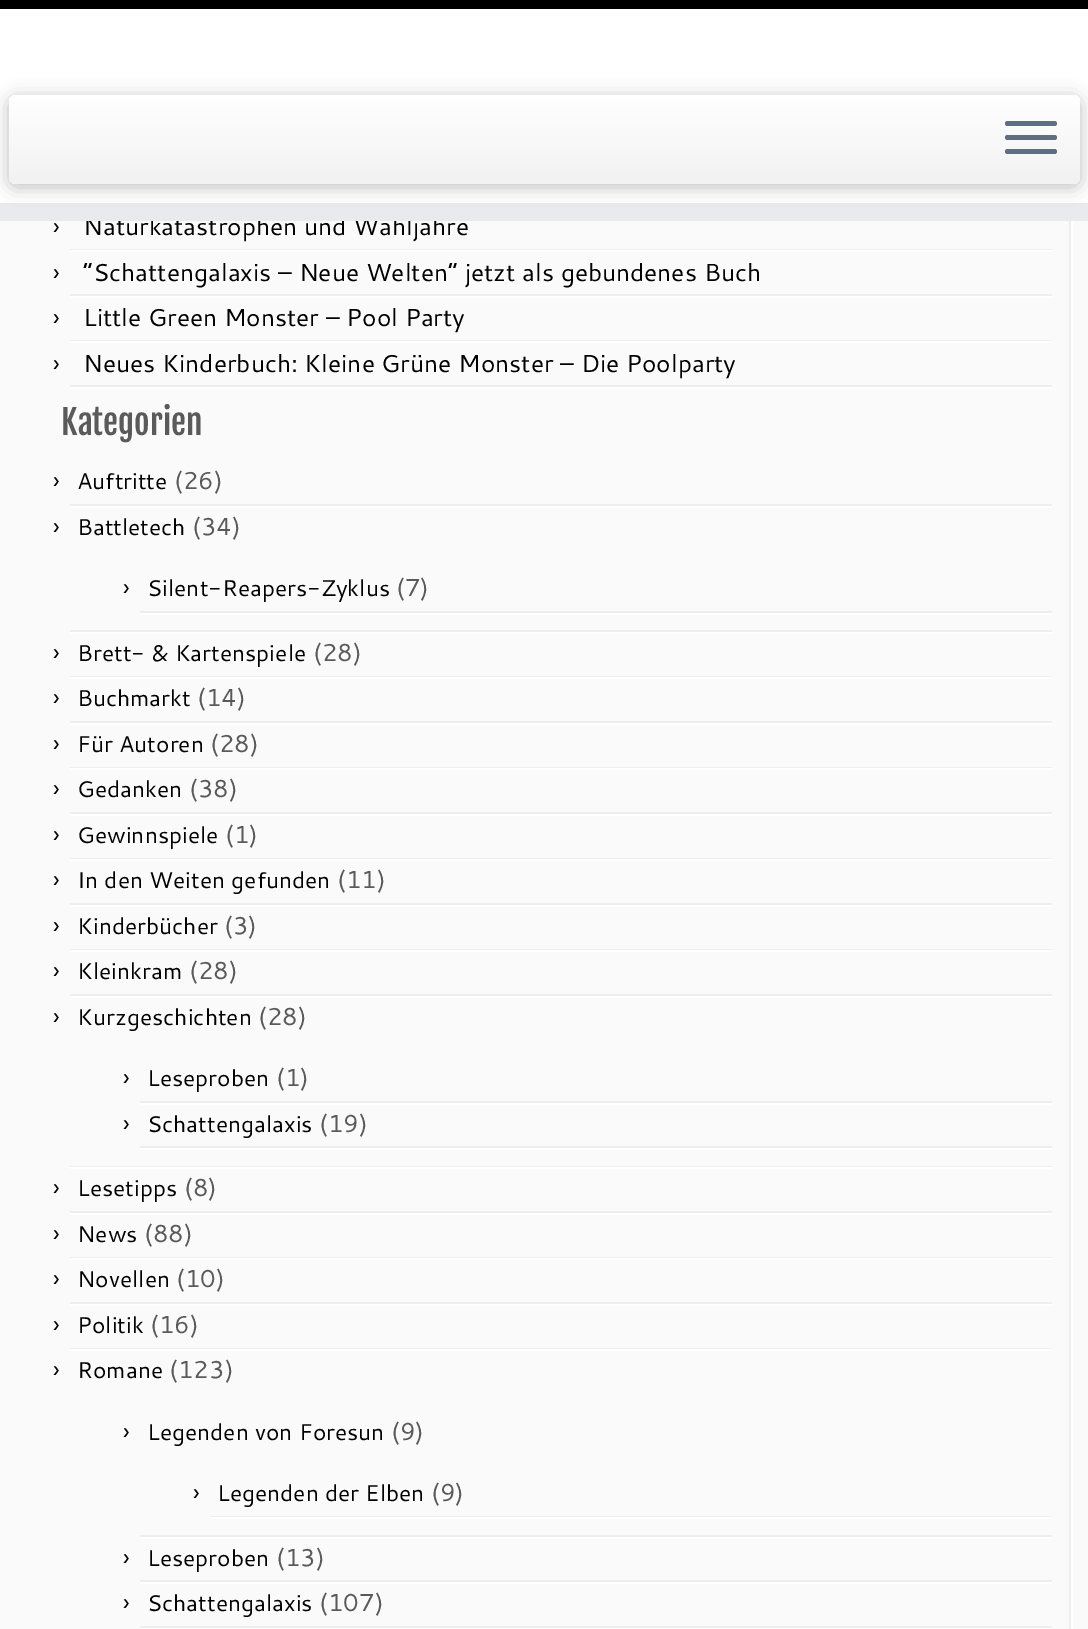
%!PS
<< /PageSize [1088 1629] /PageUsesTransparency true >> setpagedevice
/rgb { dup -16 bitshift 255 div exch dup -8 bitshift 255 and 255 div exch 255 and 255 div setrgbcolor } def
/font { [ exch dup neg 0 0 3 -1 roll 0 0 ] selectfont } def
/text { moveto show } def
/alpha { dup .setfillconstantalpha .setstrokeconstantalpha } def
/roundrect { 5 dict begin { /r /h /w /y /x } { exch def } forall
  x r add y moveto x w add y 2 copy h add r arct x w add y h add x 1 index r arct
  x y h add x y r arct x y 2 copy exch w add exch r arct closepath end } def
/shadow { 12 dict begin { /a /b /q /h /w /y /x } { exch def } forall gsave /was 0 def
  9 -2 -9 { dup b mul 4 div /e exch def 1 sub .425 mul 2.718 exch exp 1 add a .99 .min exch div /now exch def
    1 1 now sub 1 was sub div sub alpha /was now def
    w h .min e 2 mul add 0 gt { x e sub y e sub w e 2 mul add h e 2 mul add
      q e add b .6 mul add w h .min 2 div e add .min 0 .max roundrect fill } if } for grestore end } def
0 .pushpdf14devicefilter
0 1629 translate 1 -1 scale
4 setmiterlimit
/s1 { /Cantarell-Regular 24.5 font 16#000000 rgb } def
/s2 { /FjallaOne-Regular 33.5 font 16#5A5A5A rgb } def
/s3 { /Cantarell-Regular 22.75 font 16#000000 rgb } def
/s4 { /Cantarell-Regular 24.5 font 16#5A5A5A rgb } def
16#FAFAFA rgb
0 0 1088 1629 rectfill
16#FFFFFF rgb
0 9 1088 194 rectfill
16#000000 rgb
0 0 1088 9 rectfill
s1
(Naturkatastrophen und Wahljahre) 83 235 text
16#E9EAEE rgb
0 203 1088 18 rectfill
16#000000 rgb
9 98 1071 89 7 9 0.25 shadow
gsave 9 95 1071 89 7 roundrect clip newpath
<< /ShadingType 2 /ColorSpace /DeviceRGB /Coords [544 94 544 184] /Extend [true true] /Function << /FunctionType 2 /Domain [0 1] /C0 [1 1 1] /C1 [0.949 0.949 0.949] /N 1 >> >> shfill grestore
16#5F6F81 rgb
1005 121 52 5 2.5 roundrect fill
1005 135 52 5 2.5 roundrect fill
1005 149 52 5 2.5 roundrect fill
16#EEEEEE rgb
1069 221 2 1408 rectfill
70 249 982 1 rectfill
s1
(›) 53 235 text
16#FFFFFF rgb
70 250 982 2 rectfill
16#EEEEEE rgb
70 294 982 2 rectfill
s1
(›) 53 281 text
(“Schattengalaxis – Neue Welten” jetzt als gebundenes Buch) 83 281 text
16#FFFFFF rgb
70 296 982 2 rectfill
16#EEEEEE rgb
70 340 982 1 rectfill
s1
(›) 53 326 text
(Little Green Monster – Pool Party) 83 326 text
16#FFFFFF rgb
70 341 982 2 rectfill
16#EEEEEE rgb
70 385 982 2 rectfill
s1
(›) 53 372 text
(Neues Kinderbuch: Kleine Grüne Monster – Die Poolparty) 83 372 text
16#FFFFFF rgb
70 387 982 2 rectfill
1071 221 2 1408 rectfill
s2
(Kategorien) 61 435 text
16#EEEEEE rgb
70 504 982 2 rectfill
s1
(›) 53 489 text
s3
(Auftritte) 77 489 text
s4
(\(26\)) 174 489 text
16#FFFFFF rgb
70 506 982 2 rectfill
16#EEEEEE rgb
70 630 982 2 rectfill
s1
(›) 53 535 text
s3
(Battletech) 77 535 text
s4
(\(34\)) 192 535 text
16#EEEEEE rgb
140 611 912 2 rectfill
s1
(›) 123 596 text
s3
(Silent-Reapers-Zyklus) 147 596 text
s4
(\(7\)) 396 596 text
16#FFFFFF rgb
140 613 912 2 rectfill
70 632 982 2 rectfill
16#EEEEEE rgb
70 676 982 1 rectfill
s1
(›) 53 661 text
s3
(Brett- & Kartenspiele) 77 661 text
s4
(\(28\)) 313 661 text
16#FFFFFF rgb
70 677 982 2 rectfill
16#EEEEEE rgb
70 721 982 2 rectfill
s1
(›) 53 706 text
s3
(Buchmarkt) 77 706 text
s4
(\(14\)) 197 706 text
16#FFFFFF rgb
70 723 982 2 rectfill
16#EEEEEE rgb
70 767 982 1 rectfill
s1
(›) 53 752 text
s3
(Für Autoren) 77 752 text
s4
(\(28\)) 210 752 text
16#FFFFFF rgb
70 768 982 2 rectfill
16#EEEEEE rgb
70 812 982 2 rectfill
s1
(›) 53 797 text
s3
(Gedanken) 77 797 text
s4
(\(38\)) 189 797 text
16#FFFFFF rgb
70 814 982 2 rectfill
16#EEEEEE rgb
70 858 982 1 rectfill
s1
(›) 53 843 text
s3
(Gewinnspiele) 77 843 text
s4
(\(1\)) 225 843 text
16#FFFFFF rgb
70 859 982 2 rectfill
16#EEEEEE rgb
70 903 982 2 rectfill
s1
(›) 53 888 text
s3
(In den Weiten gefunden) 77 888 text
s4
(\(11\)) 337 888 text
16#FFFFFF rgb
70 905 982 2 rectfill
16#EEEEEE rgb
70 949 982 1 rectfill
s1
(›) 53 934 text
s3
(Kinderbücher) 77 934 text
s4
(\(3\)) 224 934 text
16#FFFFFF rgb
70 950 982 2 rectfill
16#EEEEEE rgb
70 994 982 2 rectfill
s1
(›) 53 979 text
s3
(Kleinkram) 77 979 text
s4
(\(28\)) 189 979 text
16#FFFFFF rgb
70 996 982 2 rectfill
16#EEEEEE rgb
70 1166 982 1 rectfill
s1
(›) 53 1025 text
s3
(Kurzgeschichten) 77 1025 text
s4
(\(28\)) 258 1025 text
16#EEEEEE rgb
140 1101 912 2 rectfill
s1
(›) 123 1086 text
s3
(Leseproben) 147 1086 text
s4
(\(1\)) 276 1086 text
16#FFFFFF rgb
140 1103 912 2 rectfill
16#EEEEEE rgb
140 1146 912 2 rectfill
s1
(›) 123 1132 text
s3
(Schattengalaxis) 147 1132 text
s4
(\(19\)) 319 1132 text
16#FFFFFF rgb
140 1148 912 2 rectfill
70 1167 982 2 rectfill
16#EEEEEE rgb
70 1211 982 2 rectfill
s1
(›) 53 1196 text
s3
(Lesetipps) 77 1196 text
s4
(\(8\)) 184 1196 text
16#FFFFFF rgb
70 1213 982 2 rectfill
16#EEEEEE rgb
70 1257 982 1 rectfill
s1
(›) 53 1242 text
s3
(News) 77 1242 text
s4
(\(88\)) 144 1242 text
16#FFFFFF rgb
70 1258 982 2 rectfill
16#EEEEEE rgb
70 1302 982 2 rectfill
s1
(›) 53 1287 text
s3
(Novellen) 77 1287 text
s4
(\(10\)) 176 1287 text
16#FFFFFF rgb
70 1304 982 2 rectfill
16#EEEEEE rgb
70 1348 982 1 rectfill
s1
(›) 53 1333 text
s3
(Politik) 77 1333 text
s4
(\(16\)) 150 1333 text
16#FFFFFF rgb
70 1349 982 2 rectfill
s1
(›) 53 1378 text
s3
(Romane) 77 1378 text
s4
(\(123\)) 169 1378 text
16#EEEEEE rgb
140 1535 912 2 rectfill
s1
(›) 123 1440 text
s3
(Legenden von Foresun) 147 1440 text
s4
(\(9\)) 391 1440 text
16#EEEEEE rgb
210 1516 842 1 rectfill
s1
(›) 193 1501 text
s3
(Legenden der Elben) 217 1501 text
s4
(\(9\)) 431 1501 text
16#FFFFFF rgb
210 1517 842 2 rectfill
140 1537 912 2 rectfill
16#EEEEEE rgb
140 1580 912 2 rectfill
s1
(›) 123 1566 text
s3
(Leseproben) 147 1566 text
s4
(\(13\)) 276 1566 text
16#FFFFFF rgb
140 1582 912 2 rectfill
16#EEEEEE rgb
140 1626 912 2 rectfill
s1
(›) 123 1611 text
s3
(Schattengalaxis) 147 1611 text
s4
(\(107\)) 319 1611 text
16#FFFFFF rgb
140 1628 912 1 rectfill
.poppdf14devicefilter showpage
